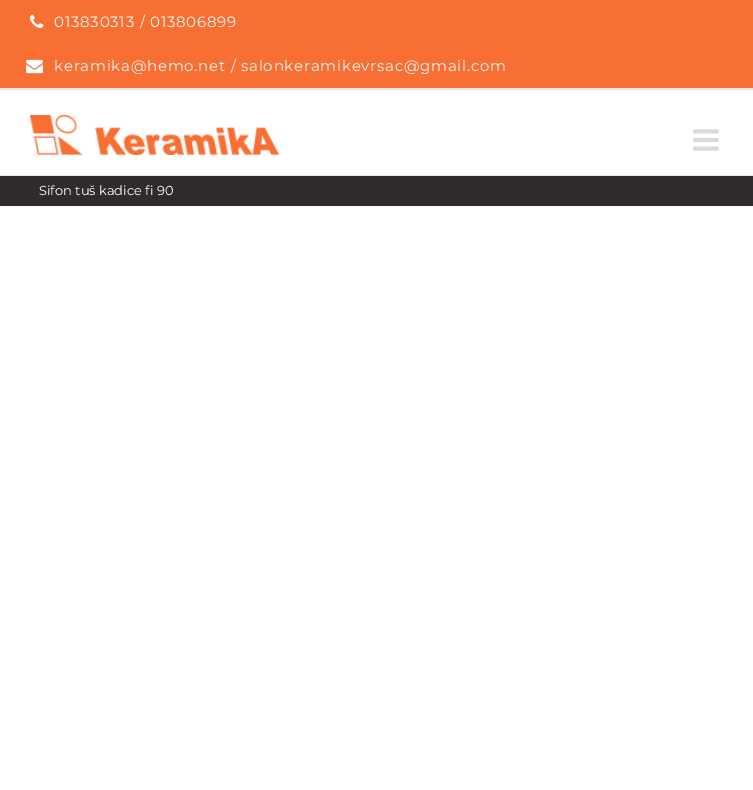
%!PS
<< /PageSize [753 790] >> setpagedevice
/rgb { dup -16 bitshift 255 div exch dup -8 bitshift 255 and 255 div exch 255 and 255 div setrgbcolor } def
/font { [ exch dup neg 0 0 3 -1 roll 0 0 ] selectfont } def
/text { moveto show } def
/picture { 5 dict begin { /h /w /y /x /name } { exch def } forall
  gsave x y translate w h scale
  w h 8 [w 0 0 h 0 0] name (r) file false 3 colorimage grestore end } def
0 790 translate 1 -1 scale
4 setmiterlimit
/s1 { /Montserrat-Regular 13 font 16#FFFFFF rgb } def
16#FFFFFF rgb
0 0 753 790 rectfill
16#F76F33 rgb
0 0 753 88 rectfill
16#E5E5E5 rgb
0 88 753 2 rectfill
(pic1.raw) 30 14 14 14 picture
/Montserrat-Regular 15 font
16#F4F4F4 rgb
54 27 moveto 0.75 0 (013830313 / 013806899) ashow
(pic2.raw) 26 59 17 15 picture
54 71 moveto 0.75 0 (keramika@hemo.net / salonkeramikevrsac@gmail.com) ashow
16#E5E5E5 rgb
0 175 753 1 rectfill
(pic3.raw) 30 115 249 40 picture
(pic4.raw) 693 129 26 22 picture
16#302A2A rgb
0 176 753 30 rectfill
s1
(Sifon tuš kadice fi 90) 39 195 text
showpage
